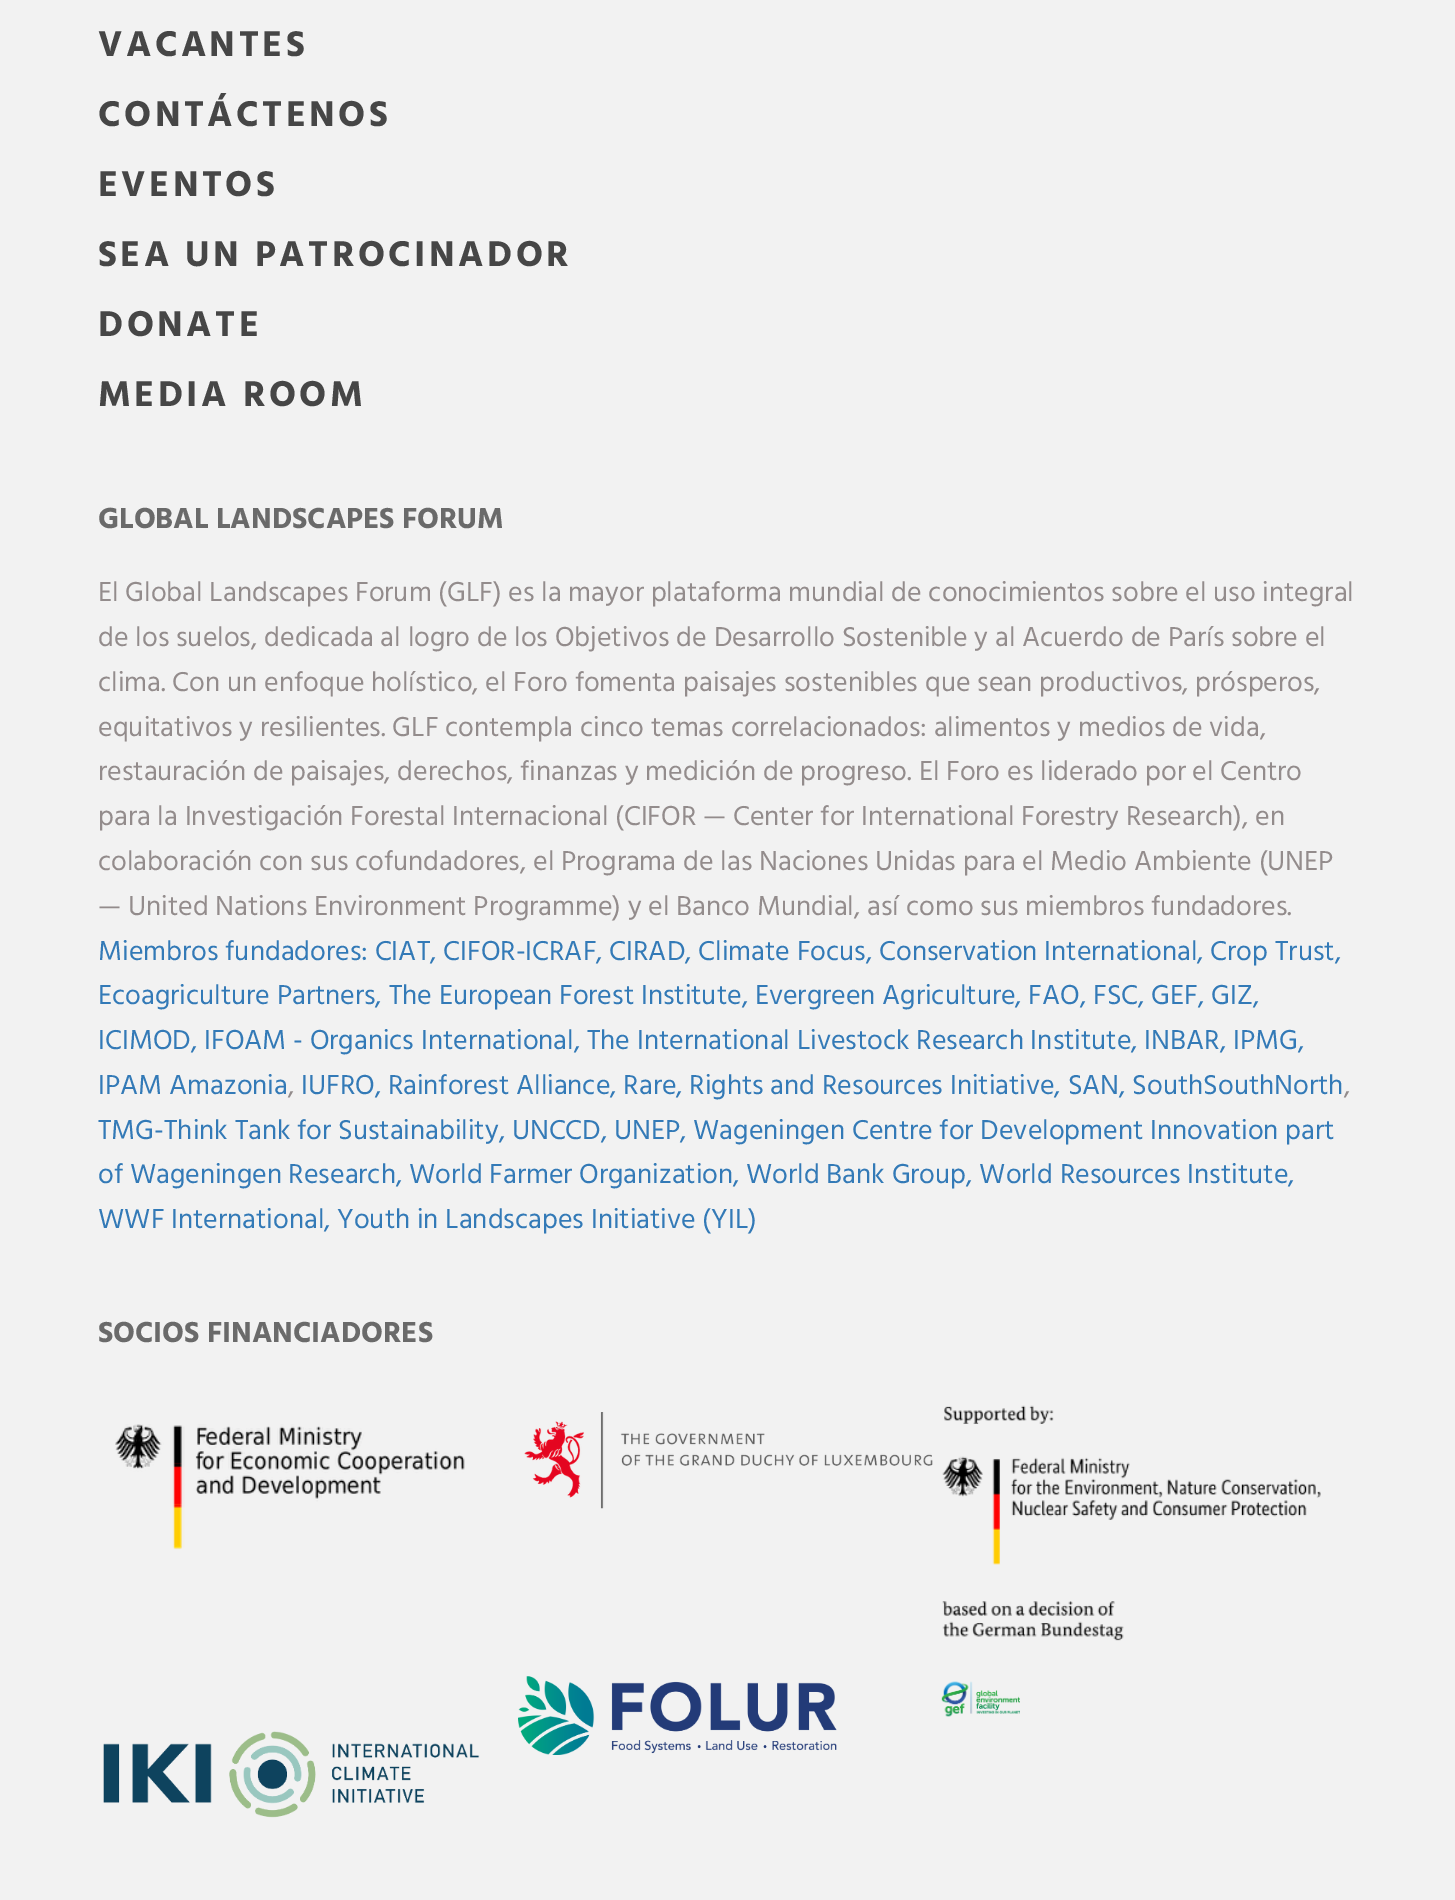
%!PS
<< /PageSize [1455 1900] >> setpagedevice
/rgb { dup -16 bitshift 255 div exch dup -8 bitshift 255 and 255 div exch 255 and 255 div setrgbcolor } def
/font { [ exch dup neg 0 0 3 -1 roll 0 0 ] selectfont } def
/text { moveto show } def
/picture { 5 dict begin { /h /w /y /x /name } { exch def } forall
  gsave x y translate w h scale
  w h 8 [w 0 0 h 0 0] name (r) file false 3 colorimage grestore end } def
0 1900 translate 1 -1 scale
4 setmiterlimit
/s1 { /Hind-Bold 29.75 font 16#6A6A6A rgb } def
/s2 { /Hind-Regular 28 font 16#938C8C rgb } def
/s3 { /Hind-Regular 28 font 16#337AB7 rgb } def
16#F2F2F2 rgb
0 0 1455 1900 rectfill
/Hind-Bold 36.75 font
16#464646 rgb
98 56 moveto 3.5 0 (VACANTES) ashow
98 126 moveto 3.5 0 (CONTÁCTENOS) ashow
98 196 moveto 3.5 0 (EVENTOS) ashow
98 266 moveto 3.5 0 (SEA UN PATROCINADOR) ashow
98 336 moveto 3.5 0 (DONATE) ashow
98 406 moveto 3.5 0 (MEDIA ROOM) ashow
s1
(GLOBAL LANDSCAPES FORUM) 98 528 text
s2
(El Global Landscapes Forum \(GLF\) es la mayor plataforma mundial de conocimientos sobre el uso integral) 98 601 text
(de los suelos, dedicada al logro de los Objetivos de Desarrollo Sostenible y al Acuerdo de París sobre el) 98 646 text
(clima. Con un enfoque holístico, el Foro fomenta paisajes sostenibles que sean productivos, prósperos,) 98 691 text
(equitativos y resilientes. GLF contempla cinco temas correlacionados: alimentos y medios de vida,) 98 736 text
(restauración de paisajes, derechos, finanzas y medición de progreso. El Foro es liderado por el Centro) 98 780 text
(para la Investigación Forestal Internacional \(CIFOR — Center for International Forestry Research\), en) 98 825 text
(colaboración con sus cofundadores, el Programa de las Naciones Unidas para el Medio Ambiente \(UNEP) 98 870 text
(— United Nations Environment Programme\) y el Banco Mundial, así como sus miembros fundadores.) 98 915 text
s3
(Miembros fundadores: CIAT, CIFOR-ICRAF, CIRAD, Climate Focus, Conservation International, Crop Trust,) 98 960 text
(Ecoagriculture Partners, The European Forest Institute, Evergreen Agriculture, FAO, FSC, GEF, GIZ,) 98 1004 text
(ICIMOD, IFOAM - Organics International, The International Livestock Research Institute, INBAR, IPMG,) 98 1049 text
(IPAM Amazonia) 98 1094 text
s2
(,) 288 1094 text
s3
(IUFRO, Rainforest Alliance, Rare, Rights and Resources Initiative, SAN, SouthSouthNorth) 301 1094 text
s2
(,) 1344 1094 text
s3
(TMG-Think Tank for Sustainability, UNCCD, UNEP, Wageningen Centre for Development Innovation part) 98 1139 text
(of Wageningen Research, World Farmer Organization, World Bank Group, World Resources Institute,) 98 1183 text
(WWF International, Youth in Landscapes Initiative \(YIL\)) 98 1228 text
s1
(SOCIOS FINANCIADORES) 98 1342 text
(pic1.raw) 115 1424 350 126 picture
(pic2.raw) 524 1412 409 97 picture
(pic3.raw) 942 1405 379 236 picture
(pic4.raw) 518 1676 319 79 picture
(pic5.raw) 941 1681 79 36 picture
(pic6.raw) 103 1731 377 87 picture
showpage
